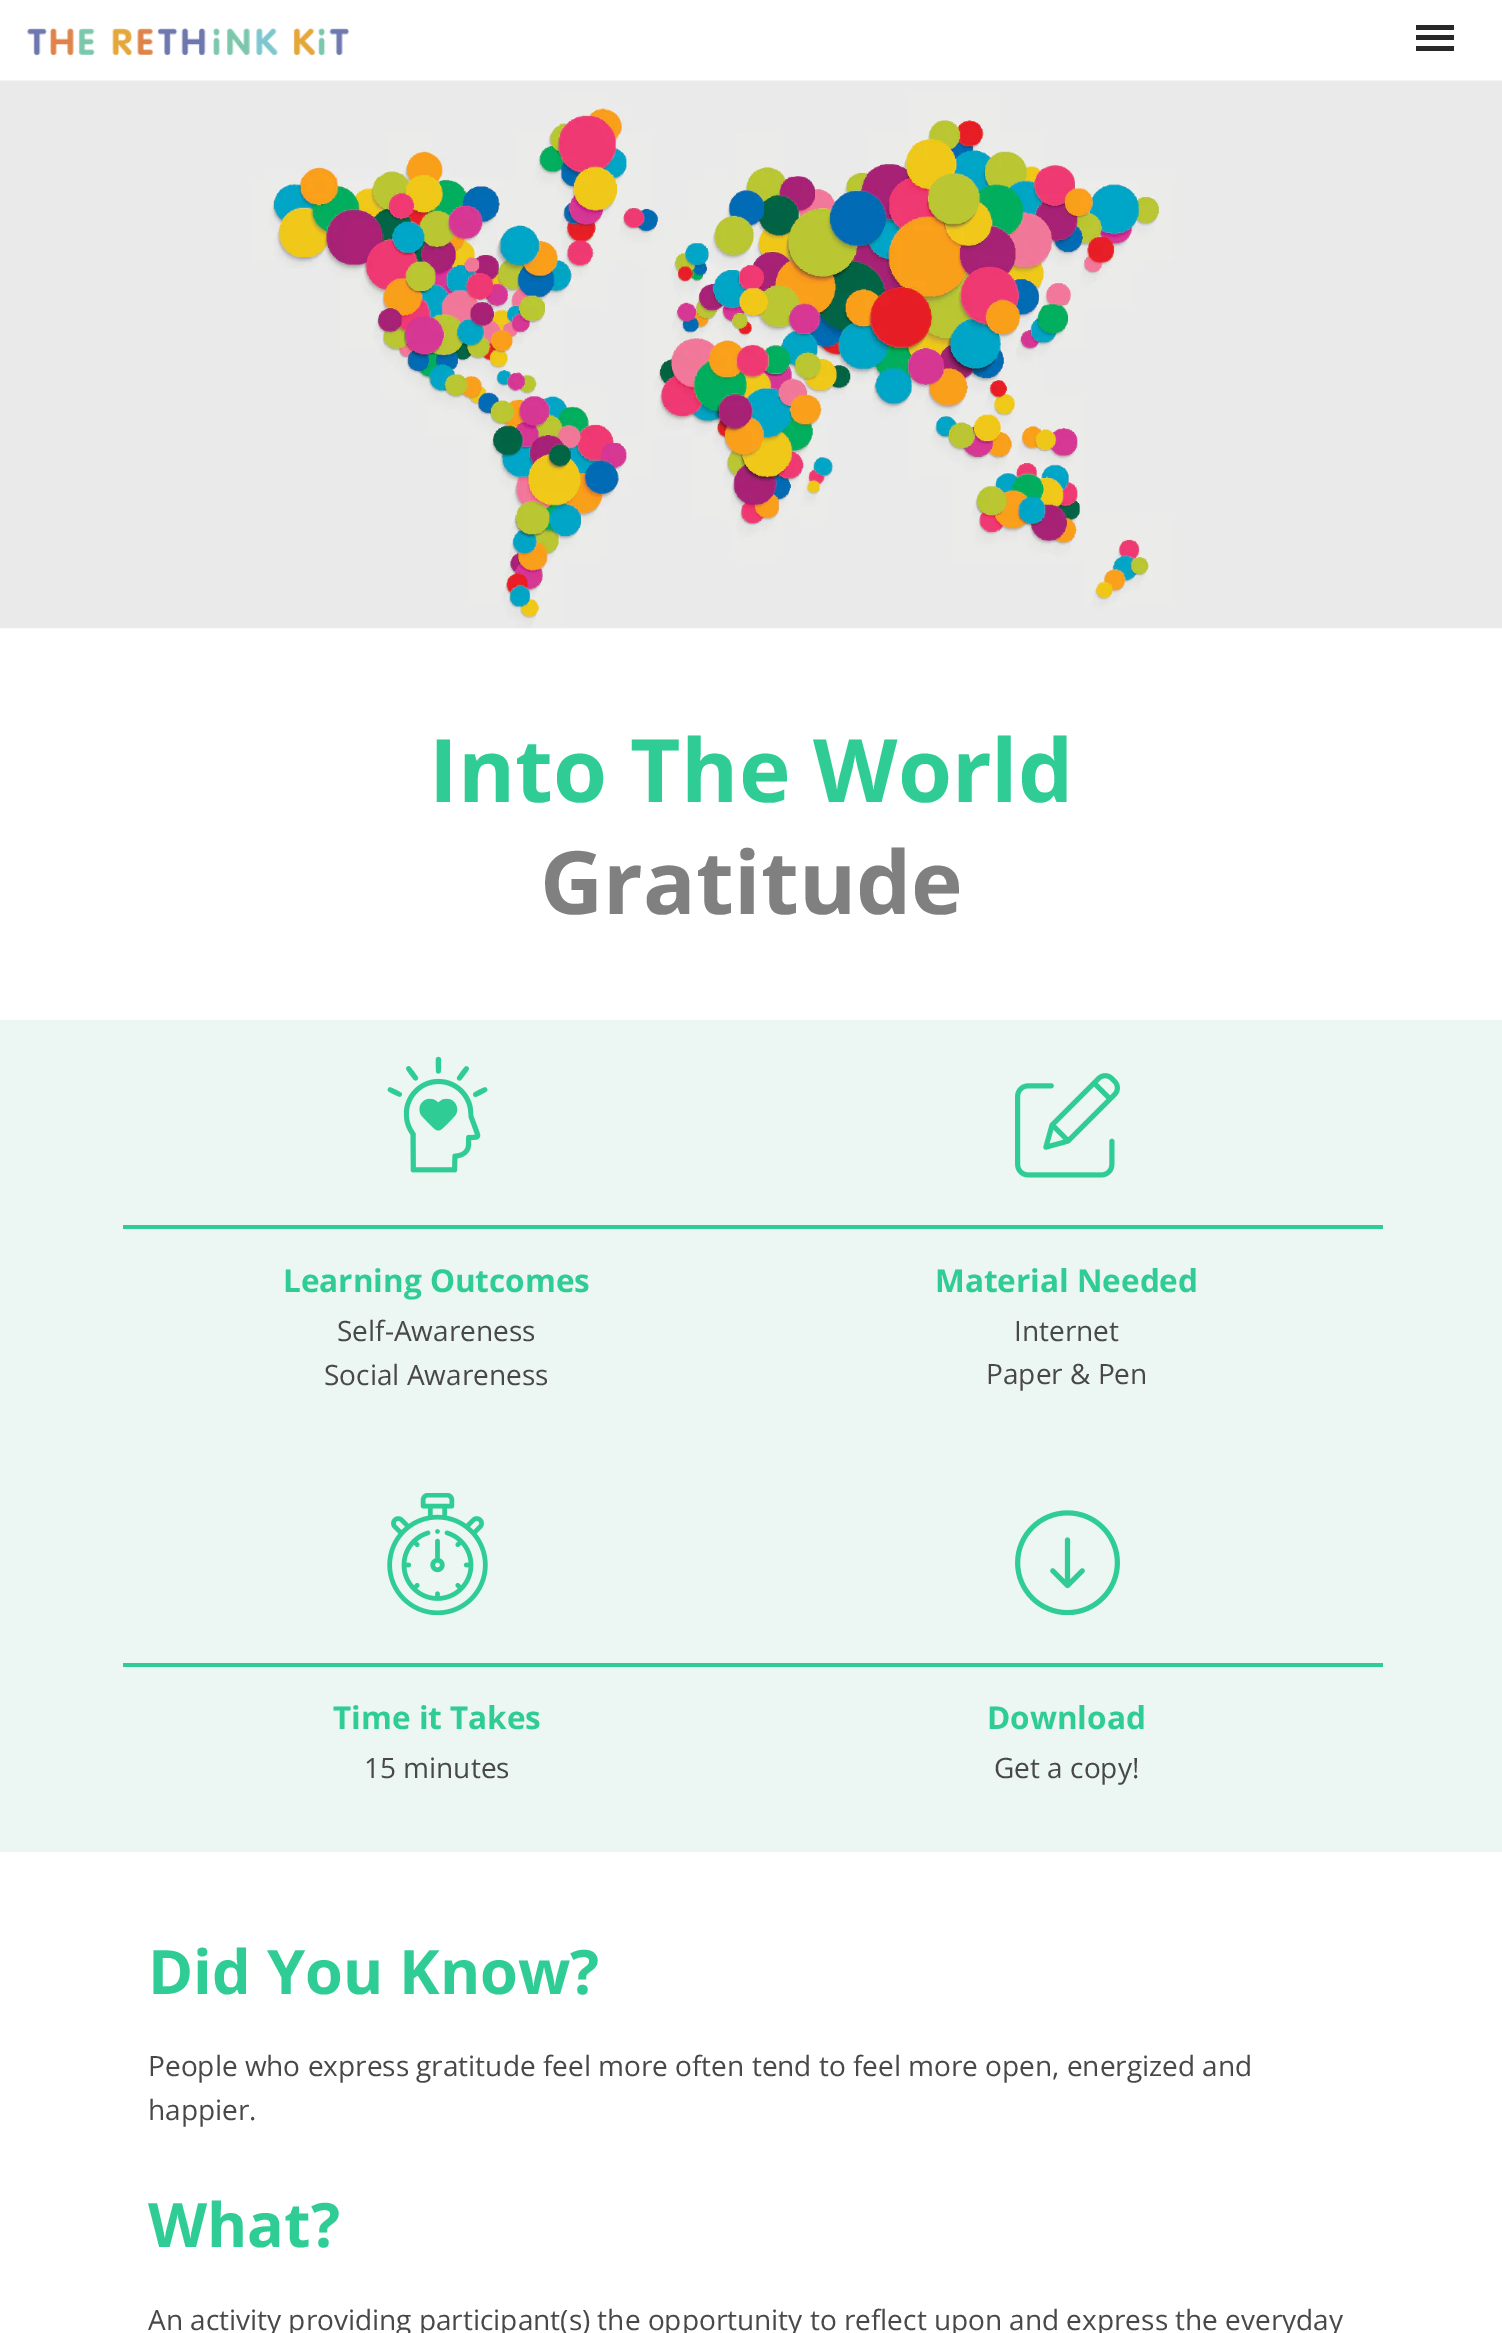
%!PS
<< /PageSize [1502 2333] >> setpagedevice
/rgb { dup -16 bitshift 255 div exch dup -8 bitshift 255 and 255 div exch 255 and 255 div setrgbcolor } def
/font { [ exch dup neg 0 0 3 -1 roll 0 0 ] selectfont } def
/text { moveto show } def
/picture { 5 dict begin { /h /w /y /x /name } { exch def } forall
  gsave x y translate w h scale
  w h 8 [w 0 0 h 0 0] name (r) file false 3 colorimage grestore end } def
0 2333 translate 1 -1 scale
4 setmiterlimit
/s1 { /OpenSans-Bold 87.5 font 16#2FCD95 rgb } def
/s2 { /OpenSans-Bold 87.5 font 16#808080 rgb } def
/s3 { /OpenSans-Bold 31.5 font 16#2FCD95 rgb } def
/s4 { /OpenSans-Regular 28 font 16#484848 rgb } def
/s5 { /OpenSans-Bold 61.25 font 16#2FCD95 rgb } def
16#FFFFFF rgb
0 0 1502 2333 rectfill
(pic1.raw) 27 28 322 28 picture
16#282828 rgb
1416 25 38 5 rectfill
1416 35 38 5 rectfill
1416 46 38 5 rectfill
(pic2.raw) 0 80 1502 549 picture
s1
(Into The World) 429 802 text
s2
(Gratitude) 540 914 text
16#ECF6F3 rgb
0 1020 1502 832 rectfill
16#2FCD95 rgb
123 1225 1260 4 rectfill
(pic3.raw) 387 1056 101 117 picture
s3
(Learning Outcomes) 283 1292 text
s4
(Self-Awareness) 337 1341 text
(Social Awareness) 324 1385 text
(pic4.raw) 1015 1073 105 105 picture
s3
(Material Needed) 935 1292 text
s4
(Internet) 1014 1341 text
(Paper & Pen) 986 1384 text
16#2FCD95 rgb
123 1663 1260 4 rectfill
(pic5.raw) 387 1493 101 122 picture
s3
(Time it Takes) 333 1729 text
s4
(15 minutes) 364 1778 text
(pic6.raw) 1015 1510 105 105 picture
s3
(Download) 987 1729 text
s4
(Get a copy!) 994 1778 text
s5
(Did You Know?) 148 1994 text
s4
(People who express gratitude feel more often tend to feel more open, energized and) 148 2076 text
(happier.) 148 2120 text
s5
(What?) 148 2247 text
s4
(An activity providing participant\(s\) the opportunity to reflect upon and express the everyday) 148 2330 text
showpage
